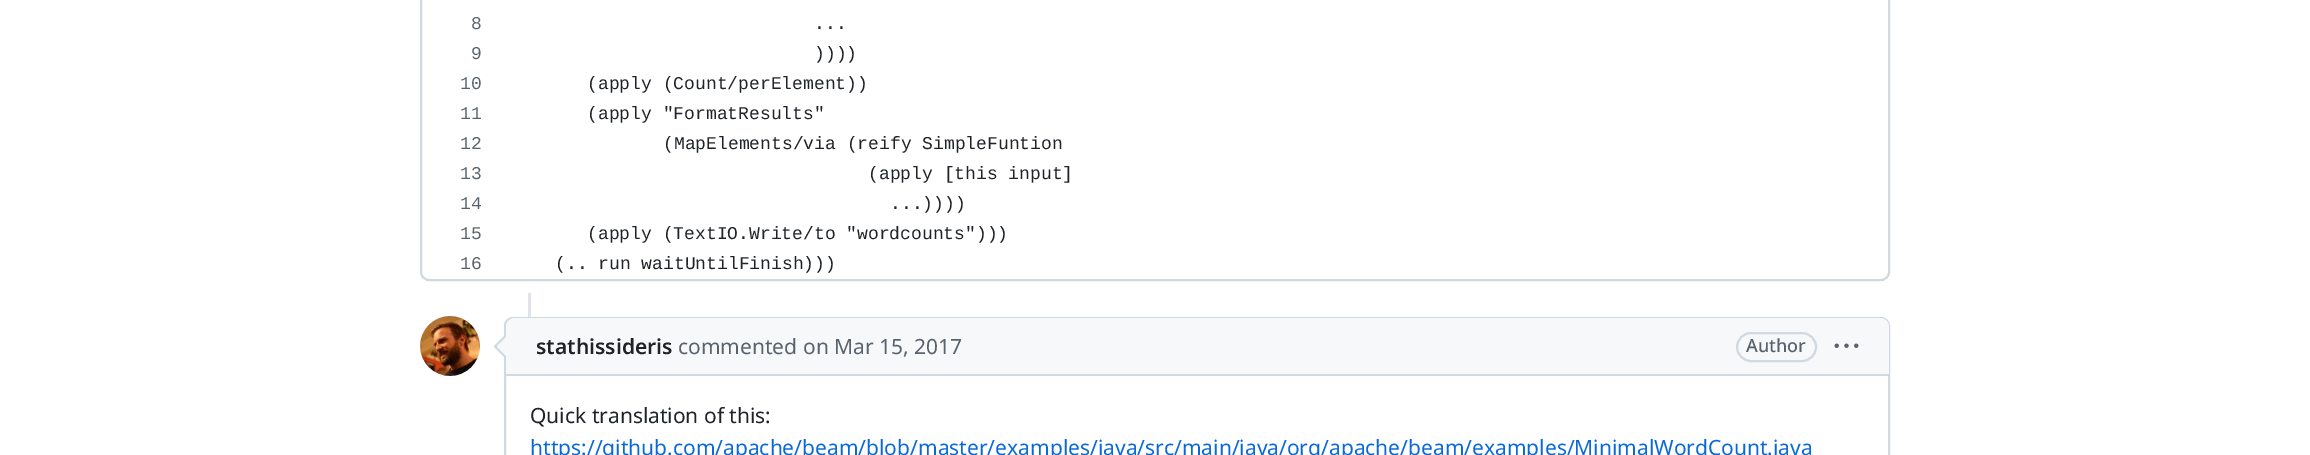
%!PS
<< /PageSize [2310 455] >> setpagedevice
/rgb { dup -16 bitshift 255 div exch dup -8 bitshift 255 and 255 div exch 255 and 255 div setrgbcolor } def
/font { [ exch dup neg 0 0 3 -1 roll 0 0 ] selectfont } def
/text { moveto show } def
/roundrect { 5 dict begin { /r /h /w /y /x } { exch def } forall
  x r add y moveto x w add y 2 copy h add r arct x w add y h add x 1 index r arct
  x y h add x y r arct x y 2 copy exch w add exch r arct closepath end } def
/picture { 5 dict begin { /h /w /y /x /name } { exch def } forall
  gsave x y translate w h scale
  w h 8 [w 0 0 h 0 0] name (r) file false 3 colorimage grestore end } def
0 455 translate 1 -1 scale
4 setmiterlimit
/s1 { /LiberationMono-Regular 18 font 16#59636E rgb } def
/s2 { /LiberationMono-Regular 18 font 16#1F2328 rgb } def
/s3 { /NotoSans-SemiBold 21 font 16#1F2328 rgb } def
/s4 { /NotoSans-Regular 21 font 16#59636E rgb } def
/s5 { /NotoSans-Medium 18 font 16#59636E rgb } def
/s6 { /NotoSans-Regular 21 font 16#1F2328 rgb } def
/s7 { /NotoSans-Regular 21 font 16#0969DA rgb } def
16#FFFFFF rgb
0 0 2310 455 rectfill
16#D1D9E0 rgb
2 setlinewidth
421 -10 1468 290 8 roundrect stroke
426 280 1458 1 rectfill
s1
(8) 471 29 text
s2
(...) 814 29 text
s1
(9) 471 59 text
s2
(\)\)\)\)) 814 59 text
s1
(10) 460 89 text
s2
(\(apply \(Count/perElement\)\)) 587 89 text
s1
(11) 460 119 text
s2
(\(apply "FormatResults") 587 119 text
s1
(12) 460 149 text
s2
(\(MapElements/via \(reify SimpleFuntion) 663 149 text
s1
(13) 460 179 text
s2
(\(apply [this input]) 868 179 text
s1
(14) 460 209 text
s2
(...\)\)\)\)) 890 209 text
s1
(15) 460 239 text
s2
(\(apply \(TextIO.Write/to "wordcounts"\)\)\)) 587 239 text
s1
(16) 460 269 text
s2
(\(.. run waitUntilFinish\)\)\)) 555 269 text
16#DFE4E9 rgb
528 293 3 24 rectfill
(pic1.raw) 420 316 60 60 picture
16#D1D9E0 rgb
505 318 1384 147 8 roundrect stroke
505.5 335 moveto 505.5 358.5 lineto 494 347 lineto 494 346 lineto 505 335 lineto closepath fill
16#F6F8FA rgb
515 318 moveto 1880 318 lineto 1885 318 1889 322 1889 327 curveto 1889 375 lineto 506 375 lineto 506 327 lineto 506 322 510 318 515 318 curveto closepath fill
508.5 335 moveto 508.5 358.5 lineto 497 347 lineto 497 346 lineto 508 335 lineto closepath fill
16#D1D9E0 rgb
506 374 1383 2 rectfill
s3
(stathissideris) 536 354 text
s4
(commented) 678 354 text
(on Mar 15, 2017) 803 354 text
16#D1D9E0 rgb
1737 333 79 28 14 roundrect stroke
s5
(Author) 1746 352 text
(pic2.raw) 1834 343 25 5 picture
s6
(Quick translation of this:) 530 423 text
s7
(https://github.com/apache/beam/blob/master/examples/java/src/main/java/org/apache/beam/examples/MinimalWordCount.java) 530 455 text
showpage
